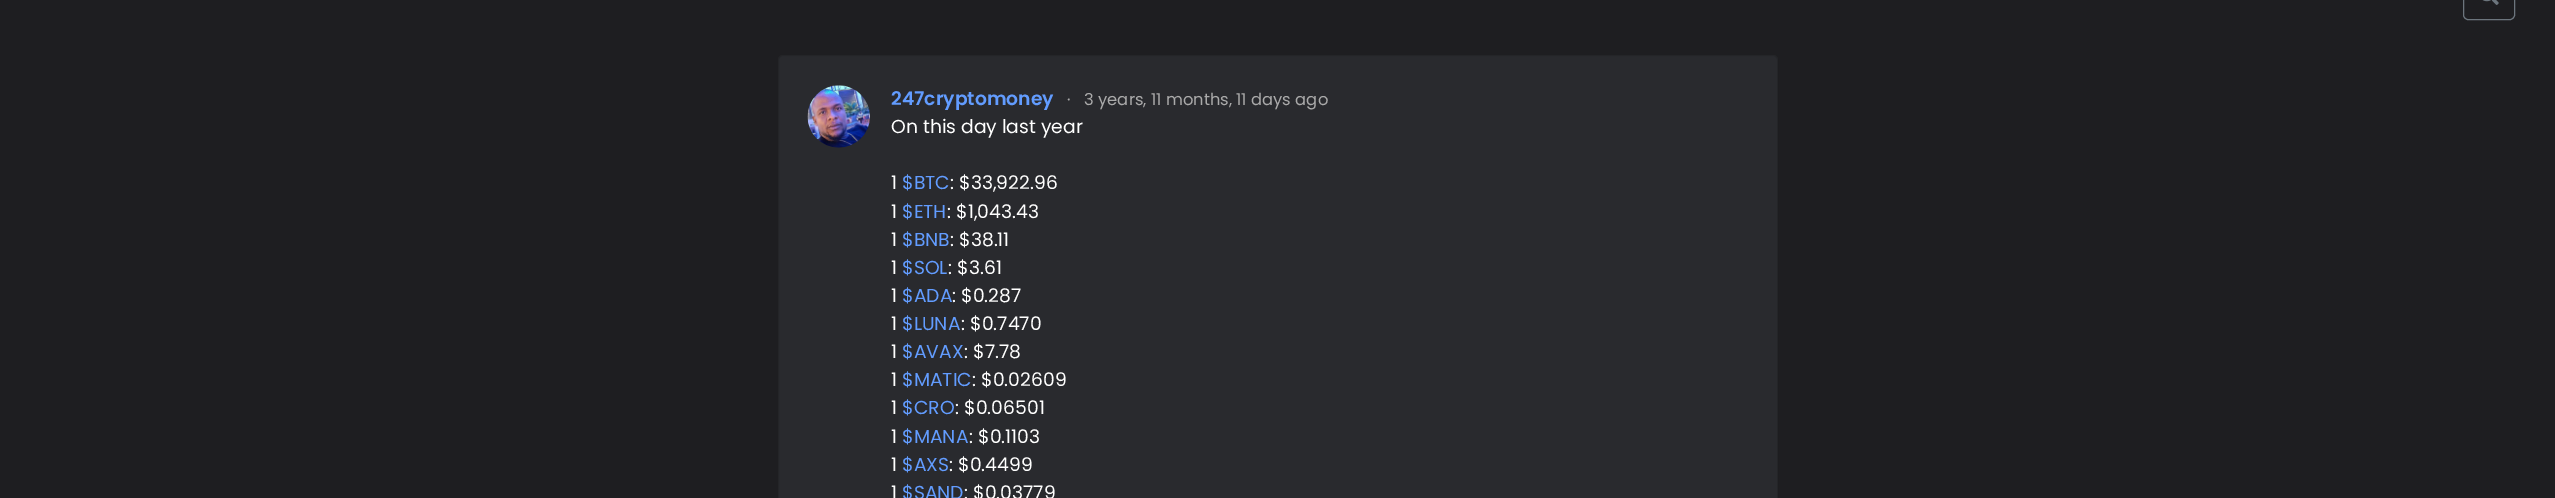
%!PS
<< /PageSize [2555 498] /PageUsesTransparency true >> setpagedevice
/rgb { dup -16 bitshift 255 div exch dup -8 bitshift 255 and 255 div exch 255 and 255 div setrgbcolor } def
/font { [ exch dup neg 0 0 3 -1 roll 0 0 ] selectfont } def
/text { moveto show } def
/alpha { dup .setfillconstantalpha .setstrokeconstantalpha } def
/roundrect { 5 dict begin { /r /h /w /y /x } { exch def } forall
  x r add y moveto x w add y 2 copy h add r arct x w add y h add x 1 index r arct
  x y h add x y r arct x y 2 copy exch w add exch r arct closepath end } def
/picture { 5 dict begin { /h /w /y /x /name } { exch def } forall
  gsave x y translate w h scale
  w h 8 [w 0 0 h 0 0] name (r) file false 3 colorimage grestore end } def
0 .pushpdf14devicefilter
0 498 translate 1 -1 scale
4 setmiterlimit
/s1 { /Poppins-SemiBold 18.75 font 16#629CFF rgb } def
/s2 { /Poppins-Regular 16.4 font 16#AAAAAA rgb } def
/s3 { /Poppins-Regular 18.75 font 16#FFFFFF rgb } def
/s4 { /Poppins-Regular 18.75 font 16#629CFF rgb } def
16#1E1E21 rgb
0 0 2555 498 rectfill
16#6C757D rgb
2463.5 -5.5 51 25 4.5 roundrect stroke
(pic1.raw) 2482 0 17 5 picture
16#292A2E rgb
778 55 1000 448 5 roundrect fill
0.12 alpha
16#000000 rgb
778.5 55.5 999 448 4.5 roundrect stroke
1 alpha
(pic2.raw) 807 85 63 63 picture
s1
(247cryptomoney) 891 105 text
s2
(·) 1067 105 text
(3 years, 11 months, 11 days ago) 1084 105 text
s3
(On this day last year) 891 133 text
(1) 891 189 text
s4
($BTC) 902 189 text
s3
(: $33,922.96) 950 189 text
(1) 891 218 text
s4
($ETH) 902 218 text
s3
(: $1,043.43) 947 218 text
(1) 891 246 text
s4
($BNB) 902 246 text
s3
(: $38.11) 950 246 text
(1) 891 274 text
s4
($SOL) 902 274 text
s3
(: $3.61) 948 274 text
(1) 891 302 text
s4
($ADA) 902 302 text
s3
(: $0.287) 952 302 text
(1) 891 330 text
s4
($LUNA) 902 330 text
s3
(: $0.7470) 961 330 text
(1) 891 358 text
s4
($AVAX) 902 358 text
s3
(: $7.78) 964 358 text
(1) 891 386 text
s4
($MATIC) 902 386 text
s3
(: $0.02609) 972 386 text
(1) 891 414 text
s4
($CRO) 902 414 text
s3
(: $0.06501) 955 414 text
(1) 891 443 text
s4
($MANA) 902 443 text
s3
(: $0.1103) 969 443 text
(1) 891 471 text
s4
($AXS) 902 471 text
s3
(: $0.4499) 949 471 text
(1) 891 499 text
s4
($SAND) 902 499 text
s3
(: $0.03779) 964 499 text
.poppdf14devicefilter showpage
